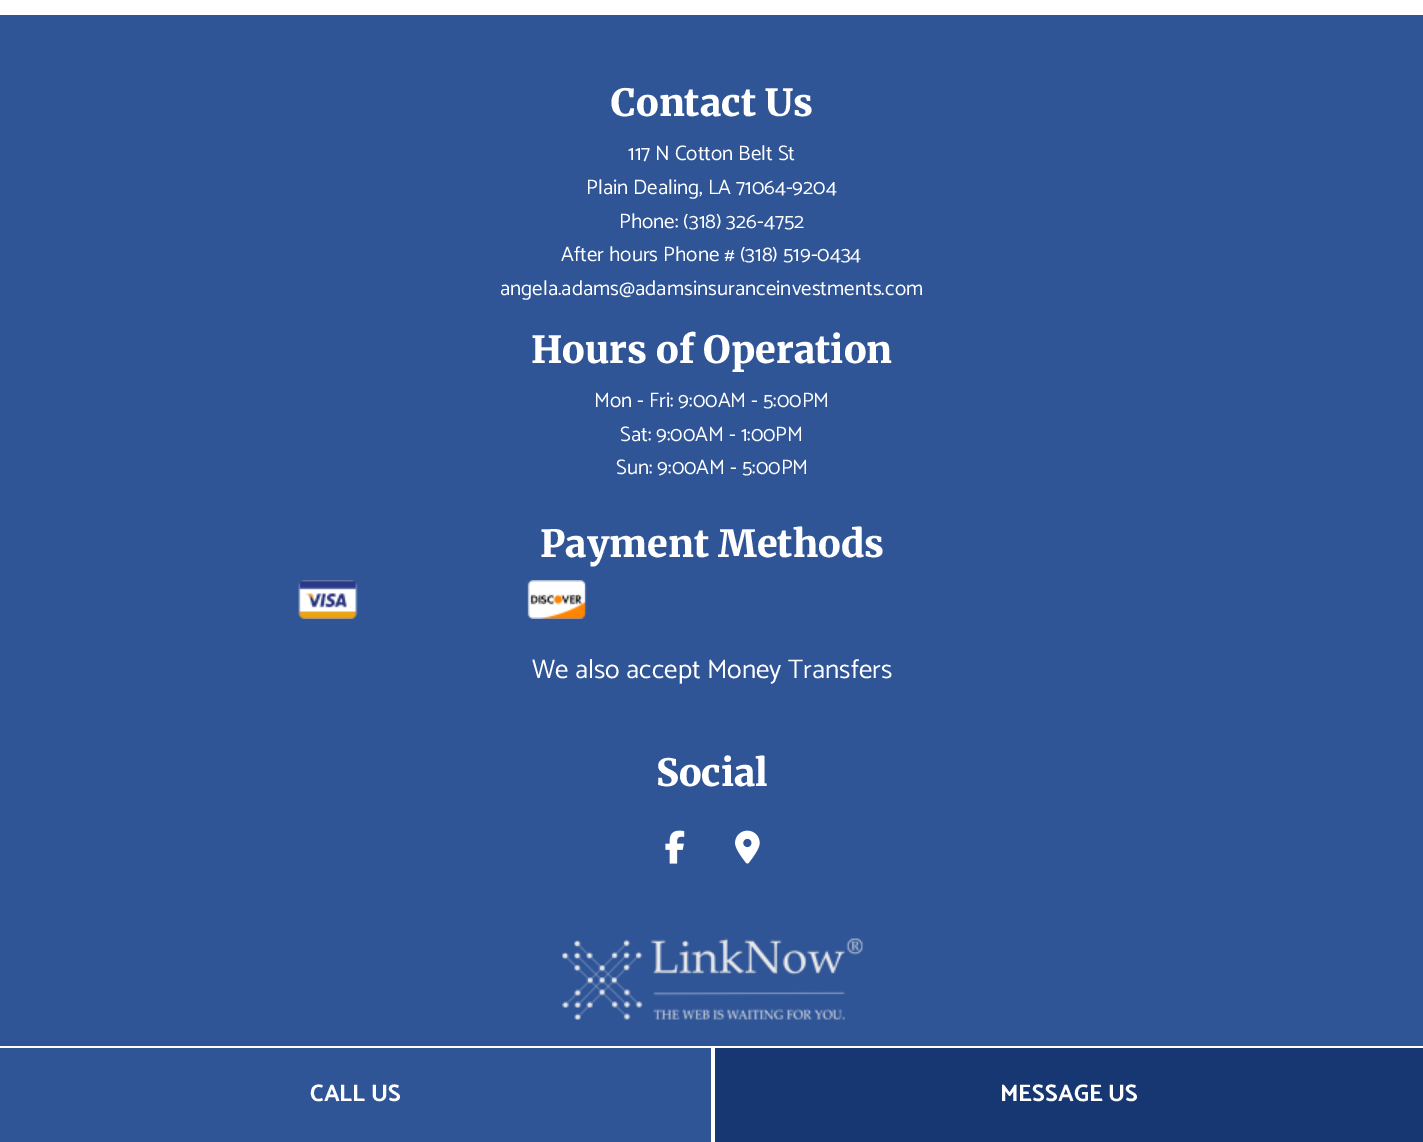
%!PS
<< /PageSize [1423 1142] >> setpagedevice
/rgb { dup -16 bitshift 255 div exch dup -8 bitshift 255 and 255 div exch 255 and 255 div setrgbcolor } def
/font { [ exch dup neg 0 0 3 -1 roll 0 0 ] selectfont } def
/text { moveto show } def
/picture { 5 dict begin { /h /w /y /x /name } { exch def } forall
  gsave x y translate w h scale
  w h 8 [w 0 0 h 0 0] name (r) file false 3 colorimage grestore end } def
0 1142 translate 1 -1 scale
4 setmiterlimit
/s1 { /Merriweather-Black 37.5 font 16#FFFFFF rgb } def
/s2 { /Catamaran-Regular 21 font 16#FFFFFF rgb } def
/s3 { /Catamaran-Regular 27 font 16#FFFFFF rgb } def
/s4 { /Catamaran-Bold 24 font 16#FFFFFF rgb } def
16#FFFFFF rgb
0 0 1423 1142 rectfill
16#2F5597 rgb
0 15 1423 1127 rectfill
s1
(Contact Us) 611 116 text
s2
(117 N Cotton Belt St) 628 160 text
(Plain Dealing, LA 71064-9204) 586 194 text
(Phone: \(318\) 326-4752) 619 228 text
(After hours Phone # \(318\) 519-0434) 561 261 text
(angela.adams@adamsinsuranceinvestments.com) 500 295 text
s1
(Hours of Operation) 531 363 text
s2
(Mon - Fri: 9:00AM - 5:00PM) 594 407 text
(Sat: 9:00AM - 1:00PM) 620 441 text
(Sun: 9:00AM - 5:00PM) 616 474 text
s1
(Payment Methods) 540 557 text
(pic1.raw) 298 580 60 39 picture
(pic2.raw) 527 580 60 39 picture
s3
(We also accept Money Transfers) 532 678 text
s1
(Social) 656 786 text
(pic3.raw) 665 830 20 34 picture
(pic4.raw) 735 830 25 34 picture
(pic5.raw) 562 938 301 82 picture
0 1046 1423 2 rectfill
711 1046 4 96 rectfill
s4
(CALL US) 310 1101 text
16#163772 rgb
715 1048 708 94 rectfill
s4
(MESSAGE US) 1000 1101 text
showpage
